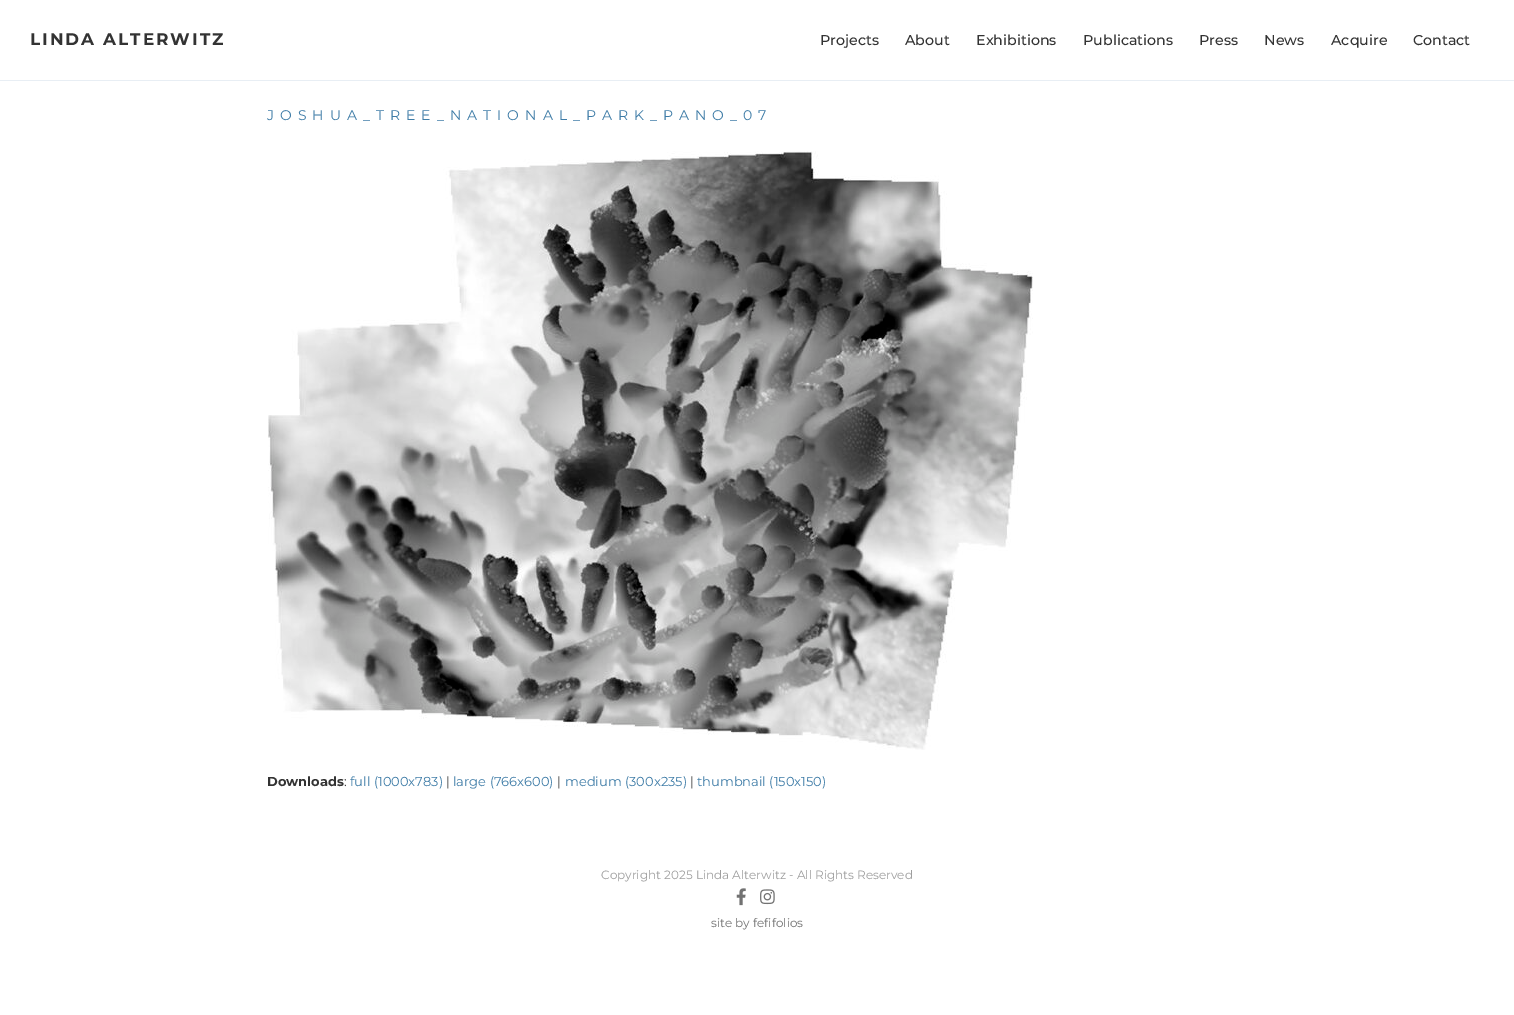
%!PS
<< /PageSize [1514 1015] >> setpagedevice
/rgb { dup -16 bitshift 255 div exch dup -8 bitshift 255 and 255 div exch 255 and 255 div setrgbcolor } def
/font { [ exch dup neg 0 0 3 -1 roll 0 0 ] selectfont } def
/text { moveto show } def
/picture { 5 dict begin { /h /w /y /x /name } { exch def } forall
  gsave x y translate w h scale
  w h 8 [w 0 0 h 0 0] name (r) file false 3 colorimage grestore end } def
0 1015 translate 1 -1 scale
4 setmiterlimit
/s1 { /Montserrat-Medium 14.25 font 16#333333 rgb } def
/s2 { /Montserrat-Bold 13 font 16#333333 rgb } def
/s3 { /Montserrat-Regular 13 font 16#333333 rgb } def
/s4 { /Montserrat-Regular 13 font 16#3E7CA7 rgb } def
/s5 { /Montserrat-Regular 12 font 16#9E9E9E rgb } def
/s6 { /Montserrat-Regular 12 font 16#727272 rgb } def
16#FFFFFF rgb
0 0 1514 1015 rectfill
/Montserrat-Bold 16.9 font
16#333333 rgb
30 45 moveto 2 0 (LINDA ALTERWITZ) ashow
s1
(Projects) 820 45 text
(About) 905 45 text
(Exhibitions) 976 45 text
(Publications) 1083 45 text
(Press) 1199 45 text
(News) 1264 45 text
(Acquire) 1331 45 text
(Contact) 1413 45 text
16#E8EEF4 rgb
0 80 1514 1 rectfill
/Montserrat-Regular 14 font
16#3E7CA7 rgb
267 120 moveto 6 0 (JOSHUA_TREE_NATIONAL_PARK_PANO_07) ashow
(pic1.raw) 268 151 765 599 picture
s2
(Downloads) 267 786 text
s3
(:) 344 786 text
s4
(full \(1000x783\)) 350 786 text
s3
(|) 446 786 text
s4
(large \(766x600\)) 453 786 text
s3
(|) 557 786 text
s4
(medium \(300x235\)) 565 786 text
s3
(|) 690 786 text
s4
(thumbnail \(150x150\)) 697 786 text
s5
(Copyright 2025 Linda Alterwitz - All Rights Reserved) 601 879 text
(pic2.raw) 736 888 10 18 picture
(pic3.raw) 760 889 15 16 picture
s6
(site by fefifolios) 711 927 text
showpage
